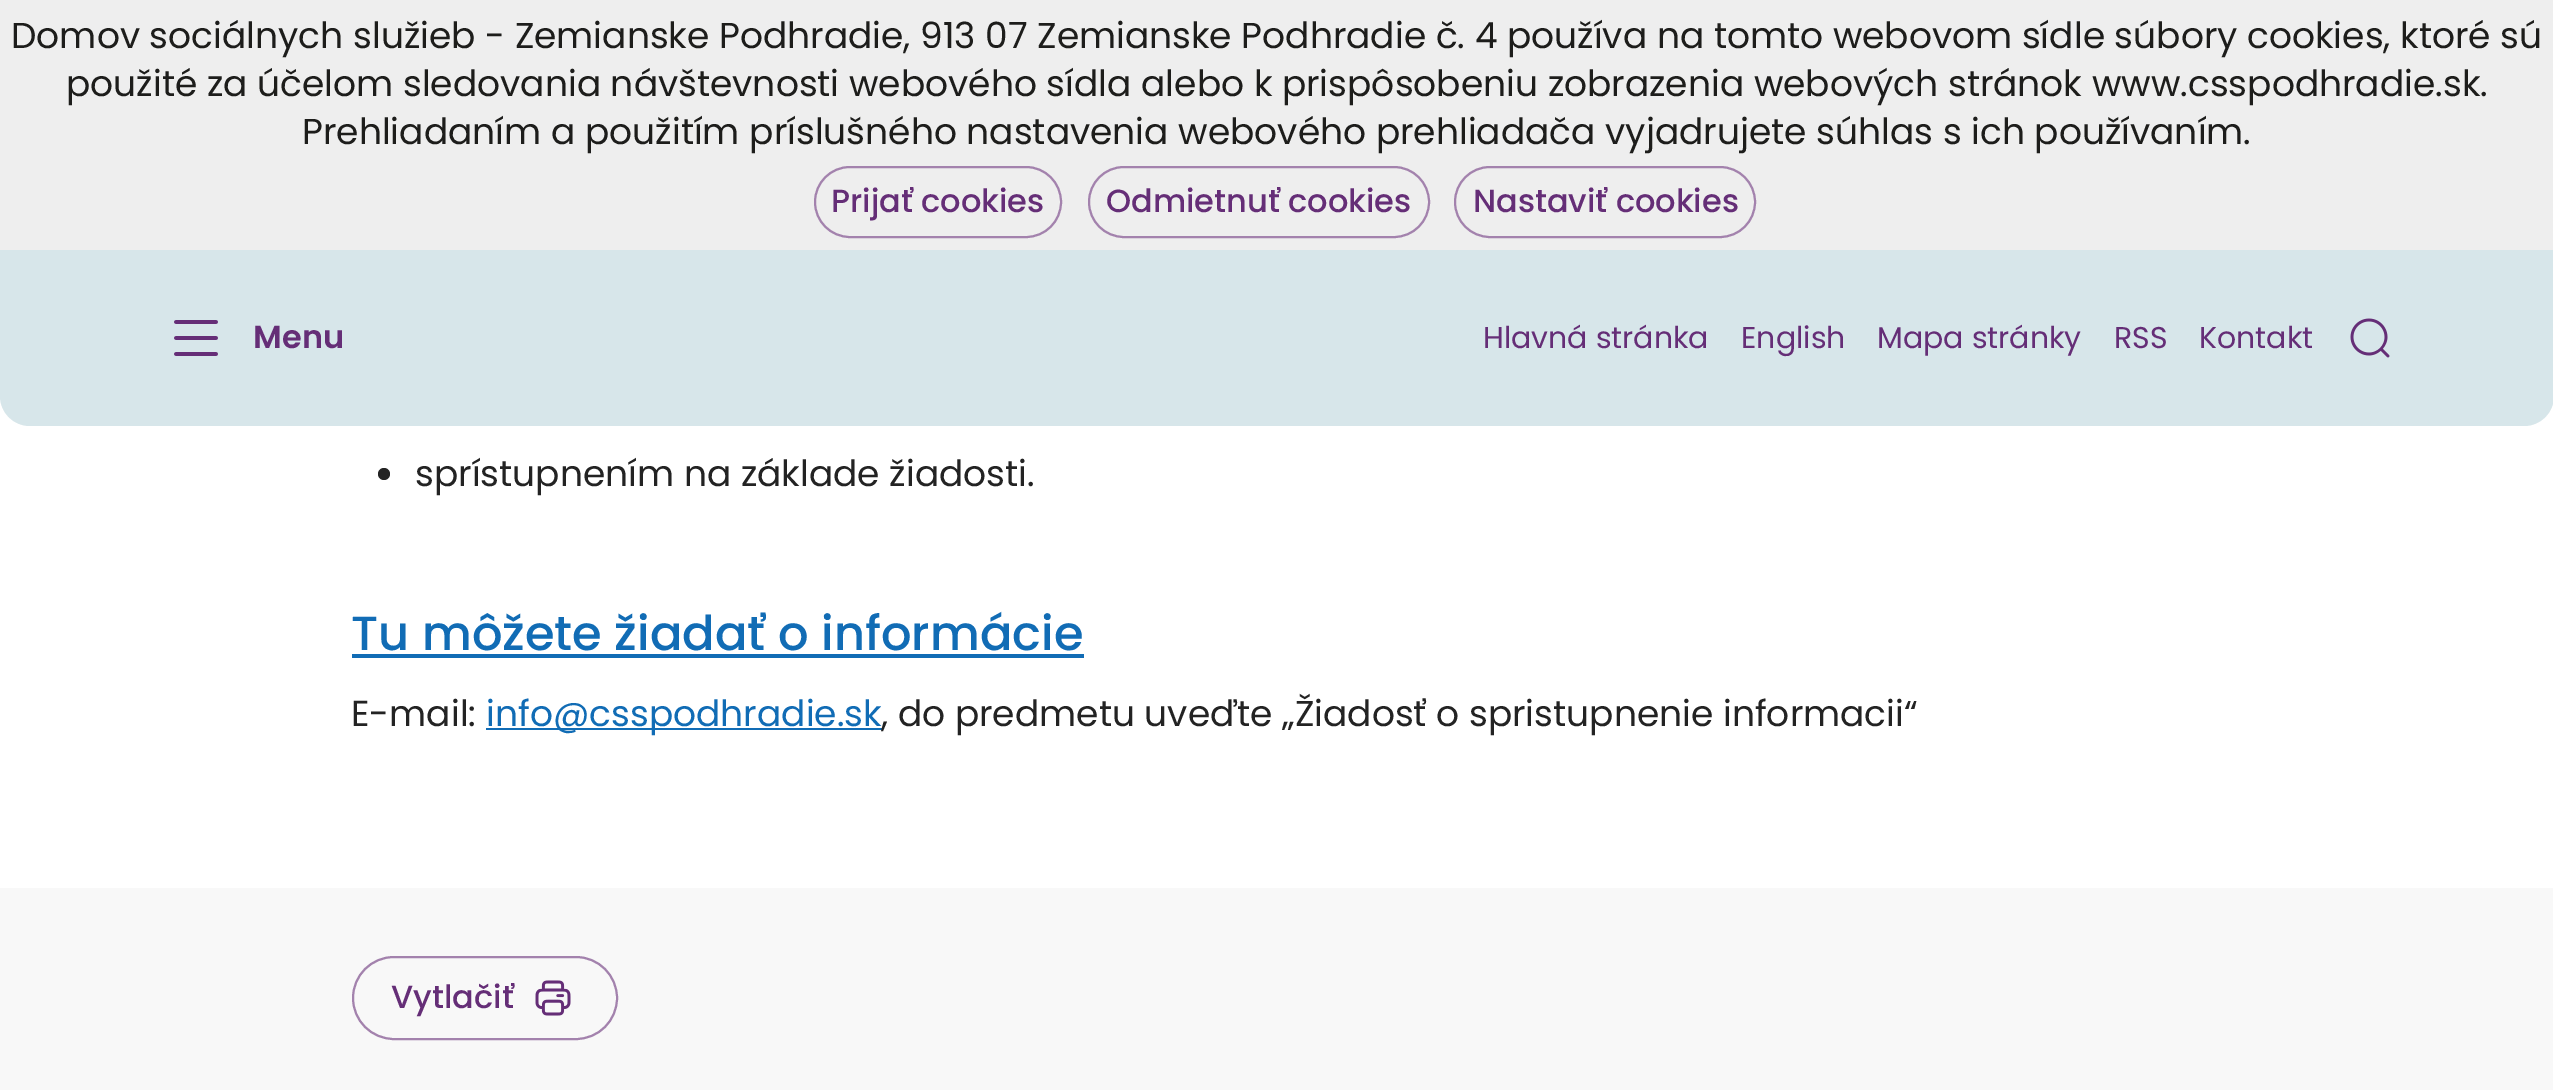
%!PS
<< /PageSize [2553 1090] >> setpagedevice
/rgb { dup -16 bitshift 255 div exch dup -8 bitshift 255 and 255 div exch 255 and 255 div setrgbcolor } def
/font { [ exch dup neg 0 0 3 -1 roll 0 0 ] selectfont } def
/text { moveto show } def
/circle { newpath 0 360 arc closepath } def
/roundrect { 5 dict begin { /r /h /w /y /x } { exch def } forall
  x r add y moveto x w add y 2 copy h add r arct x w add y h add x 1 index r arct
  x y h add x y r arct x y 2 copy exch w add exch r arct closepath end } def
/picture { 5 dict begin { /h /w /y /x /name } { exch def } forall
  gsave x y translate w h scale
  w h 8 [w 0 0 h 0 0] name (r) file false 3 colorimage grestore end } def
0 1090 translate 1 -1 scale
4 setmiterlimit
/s1 { /Poppins-Regular 36 font 16#1D1D1B rgb } def
/s2 { /Poppins-Medium 32 font 16#652E77 rgb } def
/s3 { /Poppins-SemiBold 32 font 16#652E77 rgb } def
/s4 { /Poppins-Regular 30 font 16#652E77 rgb } def
/s5 { /Poppins-Regular 36 font 16#232323 rgb } def
/s6 { /Poppins-Medium 48 font 16#116CB5 rgb } def
/s7 { /Poppins-Regular 36 font 16#116CB5 rgb } def
16#FFFFFF rgb
0 0 2553 1090 rectfill
16#EEEEEE rgb
0 0 2553 250 rectfill
s1
(Domov sociálnych služieb - Zemianske Podhradie, 913 07 Zemianske Podhradie č. 4 používa na tomto webovom sídle súbory cookies, ktoré sú) 11 48 text
(použité za účelom sledovania návštevnosti webového sídla alebo k prispôsobeniu zobrazenia webových stránok www.csspodhradie.sk.) 66 96 text
(Prehliadaním a použitím príslušného nastavenia webového prehliadača vyjadrujete súhlas s ich používaním.) 302 144 text
16#A382AD rgb
2 setlinewidth
815 167 246 70 35 roundrect stroke
s2
(Prijať cookies) 831 212 text
16#A382AD rgb
1089 167 340 70 35 roundrect stroke
s2
(Odmietnuť cookies) 1106 212 text
16#A382AD rgb
1455 167 300 70 35 roundrect stroke
s2
(Nastaviť cookies) 1473 212 text
16#D7E6EA rgb
0 250 moveto 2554 250 lineto 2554 396 lineto 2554 412.5 2540.5 426 2524 426 curveto 30 426 lineto 13.5 426 0 412.5 0 396 curveto closepath fill
(pic1.raw) 174 320 44 36 picture
s3
(Menu) 253 348 text
s4
(Hlavná stránka) 1483 348 text
(English) 1741 348 text
(Mapa stránky) 1877 348 text
(RSS) 2114 348 text
(Kontakt) 2199 348 text
(pic2.raw) 2350 318 40 40 picture
16#232323 rgb
384 474 6 circle fill
s5
(sprístupnením na základe žiadosti.) 415 486 text
s6
(Tu môžete žiadať o informácie) 351 650 text
352 654 732 4 rectfill
s5
(E-mail:) 351 726 text
16#116CB5 rgb
486 728 396 2 rectfill
(info@csspodhradie.sk) 486 726 text
s5
(, do predmetu uveďte „Žiadosť o spristupnenie informacii“) 881 726 text
16#F8F8F8 rgb
0 888 2553 202 rectfill
16#A382AD rgb
353 957 264 82 41 roundrect stroke
s2
(Vytlačiť) 391 1008 text
(pic3.raw) 535 980 36 36 picture
showpage
